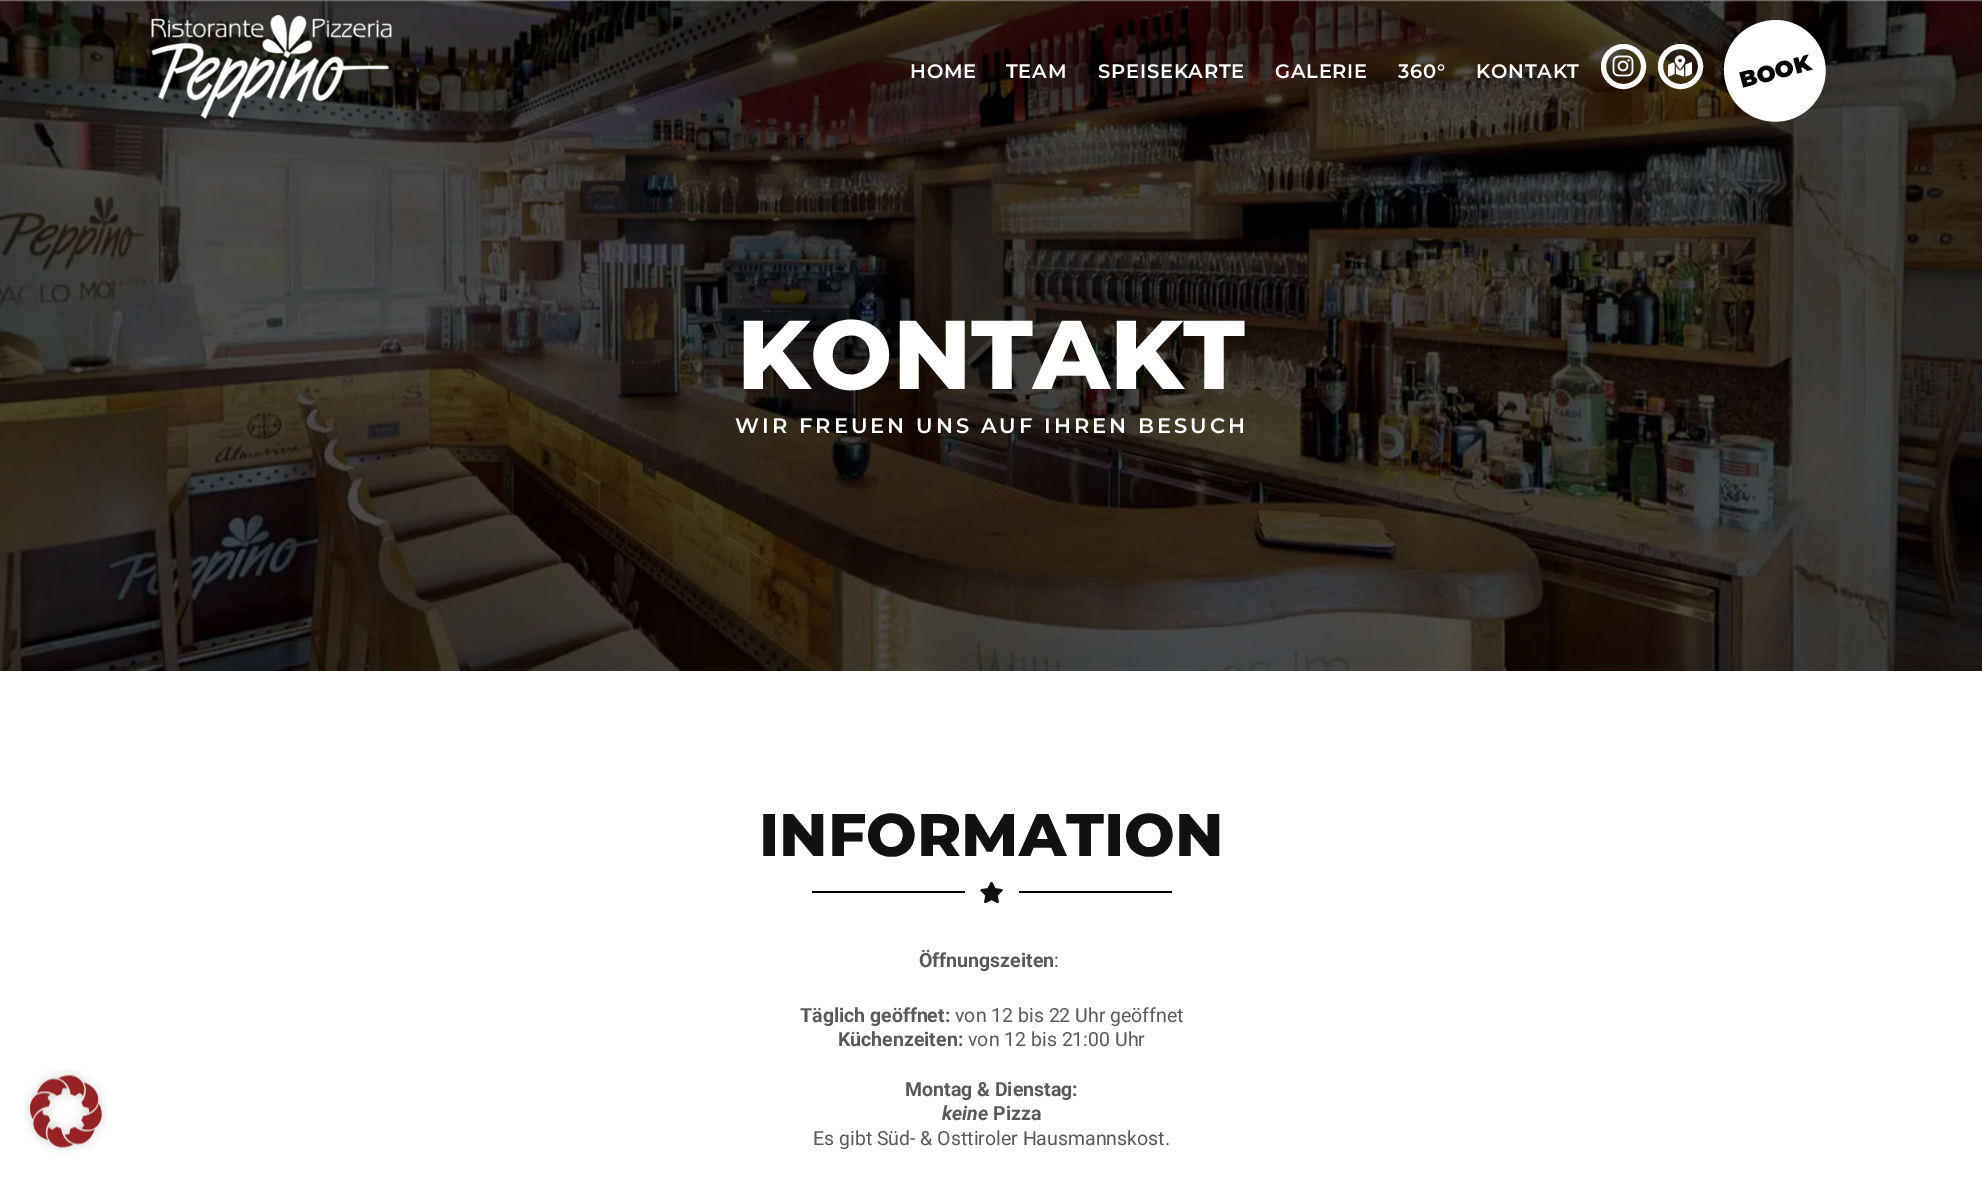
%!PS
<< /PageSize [1982 1177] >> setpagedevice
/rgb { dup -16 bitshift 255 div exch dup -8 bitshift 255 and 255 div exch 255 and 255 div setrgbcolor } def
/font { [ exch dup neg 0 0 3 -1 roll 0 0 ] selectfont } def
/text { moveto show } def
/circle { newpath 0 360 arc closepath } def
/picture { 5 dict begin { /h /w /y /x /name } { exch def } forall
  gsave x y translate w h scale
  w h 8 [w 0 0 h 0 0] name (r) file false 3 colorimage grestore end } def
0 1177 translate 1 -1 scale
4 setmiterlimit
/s1 { /Montserrat-ExtraBold 97.5 font 16#FFFFFF rgb } def
/s2 { /Montserrat-ExtraBold 60 font 16#111111 rgb } def
/s3 { /Roboto-Bold 19.5 font 16#595959 rgb } def
/s4 { /Roboto-Regular 19.5 font 16#595959 rgb } def
/s5 { /Roboto-BoldItalic 19.5 font 16#595959 rgb } def
16#FFFFFF rgb
0 0 1982 1177 rectfill
16#999999 rgb
0 0 1982 2 rectfill
(pic1.raw) 24 1069 84 84 picture
(pic5.raw) 0 0 1982 671 picture
(pic2.raw) 151 15 241 104 picture
/Montserrat-SemiBold 19.5 font
16#FFFFFF rgb
910 78 moveto 0.75 0 (HOME) ashow
1006 78 moveto 0.75 0 (TEAM) ashow
1098 78 moveto 0.75 0 (SPEISEKARTE) ashow
1275 78 moveto 0.75 0 (GALERIE) ashow
1398 78 moveto 0.75 0 (360°) ashow
1476 78 moveto 0.75 0 (KONTAKT) ashow
5 setlinewidth
1623.5 66.5 20 circle stroke
(pic3.raw) 1612 55 22 22 picture
1680.5 66.5 20 circle stroke
(pic4.raw) 1668 55 24 22 picture
1762 22 moveto 1789 14 1817 31 1824 58 curveto 1831 85 1815 113 1788 120 curveto 1761 127 1733 111 1726 84 curveto 1718 57 1734 29 1762 22 curveto closepath fill
/Montserrat-Black 22.5 font
16#000000 rgb
gsave 1742 88 translate -15 rotate 0 0 moveto (BOOK) show grestore
s1
(KONTAKT) 737 389 text
/Montserrat-SemiBold 21 font
735 433 moveto 3 0 (WIR FREUEN UNS AUF IHREN BESUCH) ashow
s2
(INFORMATION) 759 856 text
16#000000 rgb
812 891 153 2 rectfill
(pic6.raw) 980 881 23 23 picture
1019 891 153 2 rectfill
s3
(Öffnungszeiten) 919 967 text
s4
(:) 1054 967 text
s3
(Täglich geöffnet:) 800 1022 text
s4
(von 12 bis 22 Uhr geöffnet) 955 1022 text
s3
(Küchenzeiten:) 838 1046 text
s4
(von 12 bis 21:00 Uhr) 968 1046 text
s3
(Montag & Dienstag:) 905 1096 text
s5
(keine) 942 1120 text
s3
(Pizza) 993 1120 text
s4
(Es gibt Süd- & Osttiroler Hausmannskost.) 813 1145 text
showpage
